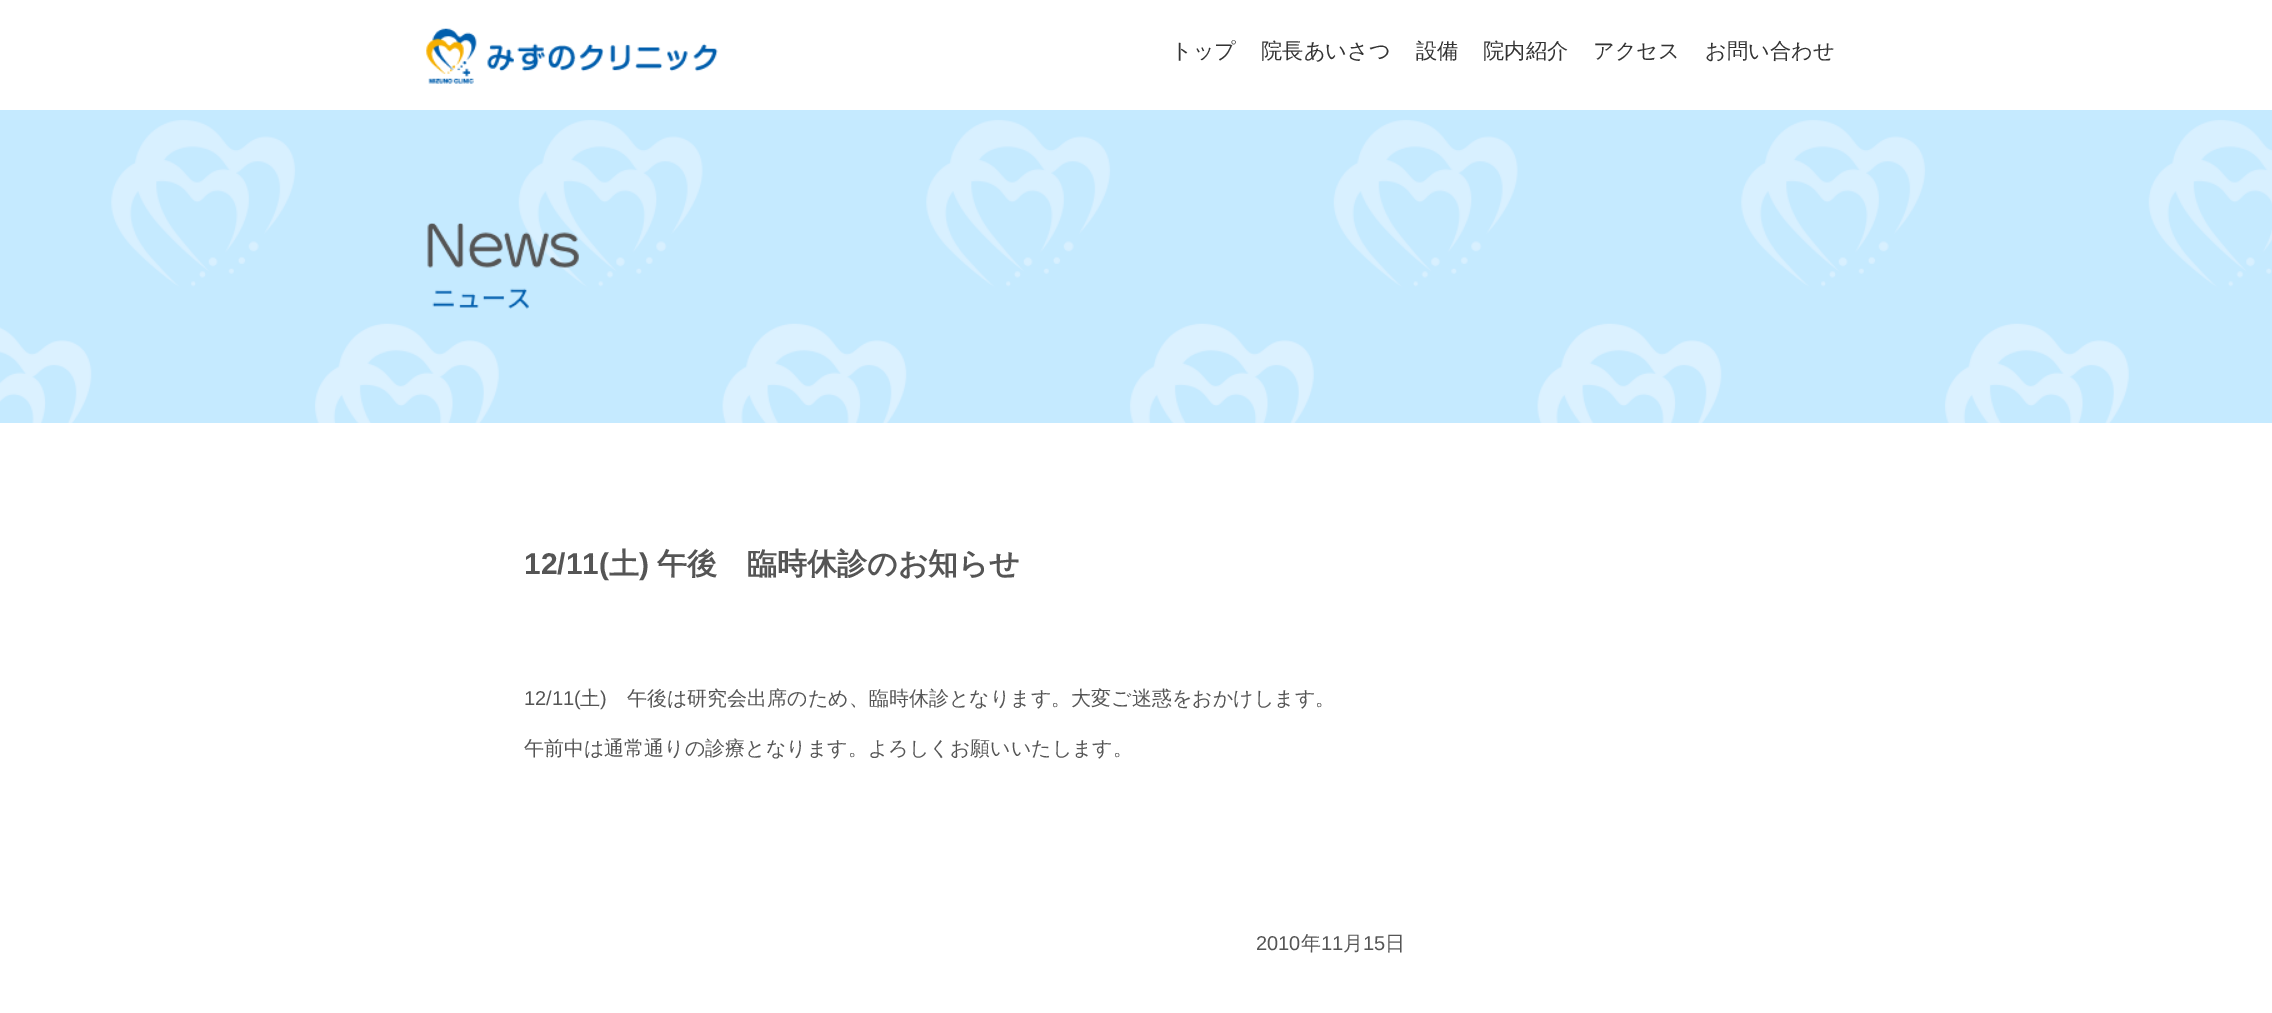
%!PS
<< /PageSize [2272 1013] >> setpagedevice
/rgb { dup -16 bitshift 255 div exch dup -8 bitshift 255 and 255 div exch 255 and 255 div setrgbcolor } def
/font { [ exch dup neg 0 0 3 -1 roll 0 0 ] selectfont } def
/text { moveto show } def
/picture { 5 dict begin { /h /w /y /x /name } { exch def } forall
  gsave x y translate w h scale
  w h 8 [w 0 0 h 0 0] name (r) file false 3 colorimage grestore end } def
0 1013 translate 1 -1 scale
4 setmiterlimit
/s1 { /WenQuanYiZenHei-Medium 21.25 font 16#333333 rgb } def
/s2 { /LiberationSans-Bold 30 font 16#555555 rgb } def
/s3 { /WenQuanYiZenHei-Bold 30 font 16#555555 rgb } def
/s4 { /LiberationSans-Regular 20 font 16#555555 rgb } def
/s5 { /WenQuanYiZenHei-Medium 20 font 16#555555 rgb } def
16#FFFFFF rgb
0 0 2272 1013 rectfill
(pic1.raw) 426 28 292 56 picture
s1
(トップ) 1171 58 text
(院長あいさつ) 1261 58 text
(設備) 1416 58 text
(院内紹介) 1483 58 text
(アクセス) 1593 58 text
(お問い合わせ) 1705 58 text
(pic2.raw) 0 110 2272 313 picture
(pic3.raw) 427 223 152 86 picture
s2
(12/11\() 524 574 text
s3
(土) 609 574 text
s2
(\)) 639 574 text
s3
(午後　臨時休診のお知らせ) 657 574 text
s4
(12/11\() 524 705 text
s5
(土) 580 705 text
s4
(\)) 600 705 text
s5
(午後は研究会出席のため、臨時休診となります。大変ご迷惑をおかけします。) 627 705 text
(午前中は通常通りの診療となります。よろしくお願いいたします。) 524 755 text
s4
(2010) 1256 950 text
s5
(年) 1301 950 text
s4
(11) 1321 950 text
s5
(月) 1343 950 text
s4
(15) 1363 950 text
s5
(日) 1385 950 text
showpage
